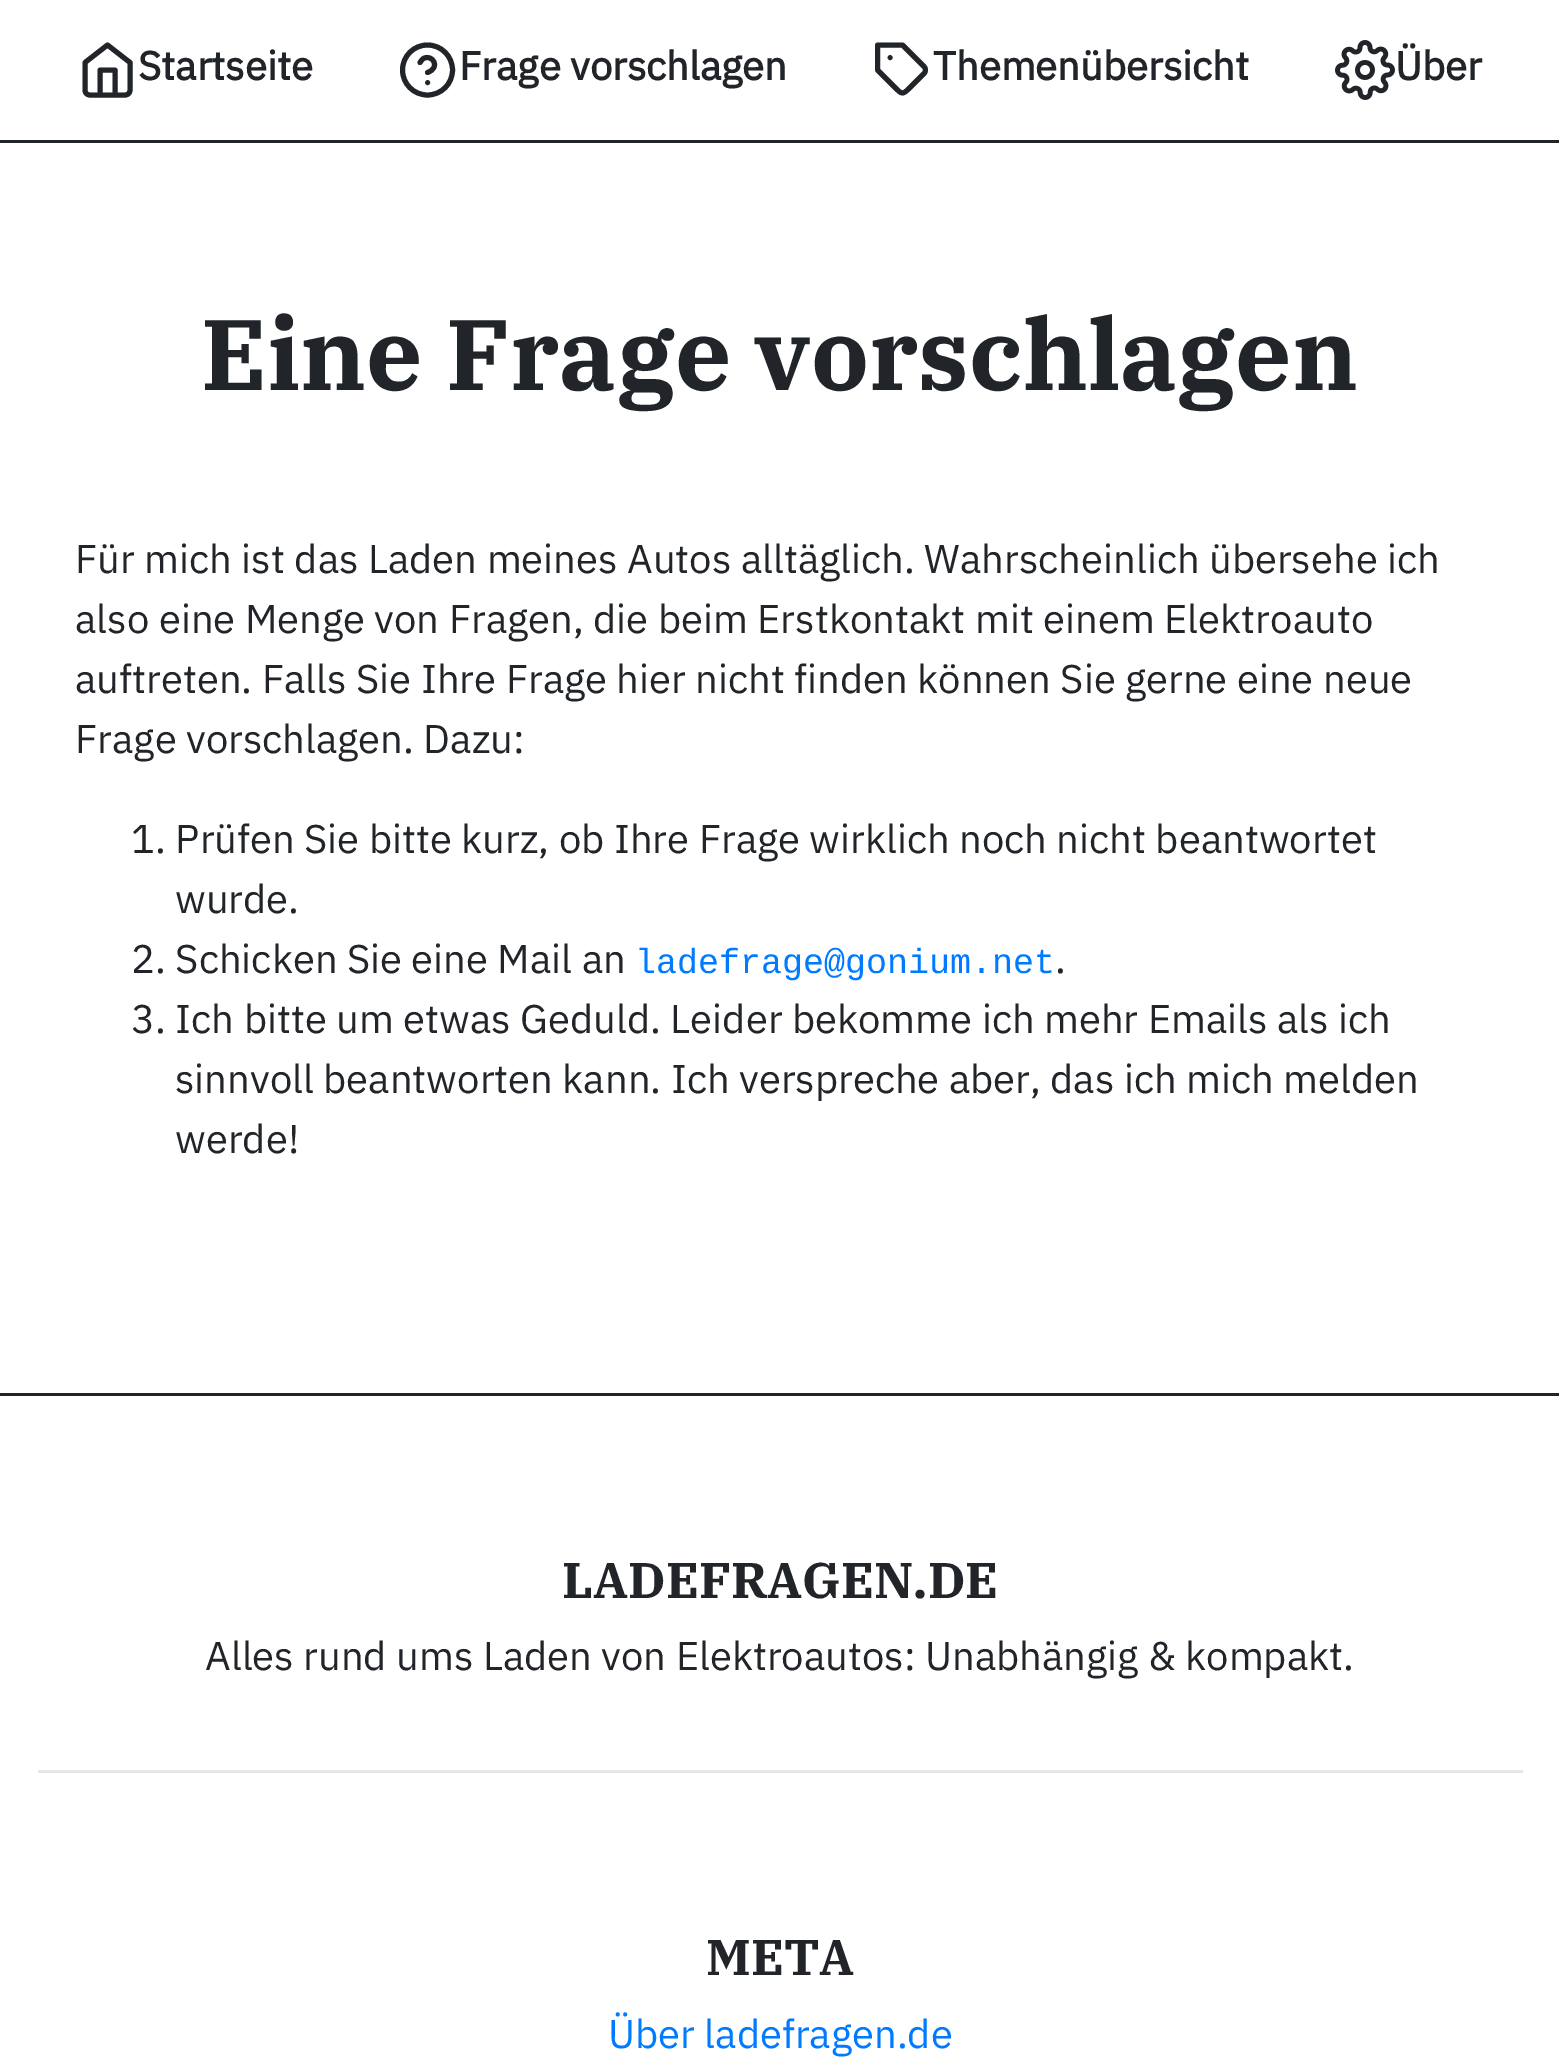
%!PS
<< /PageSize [1559 2057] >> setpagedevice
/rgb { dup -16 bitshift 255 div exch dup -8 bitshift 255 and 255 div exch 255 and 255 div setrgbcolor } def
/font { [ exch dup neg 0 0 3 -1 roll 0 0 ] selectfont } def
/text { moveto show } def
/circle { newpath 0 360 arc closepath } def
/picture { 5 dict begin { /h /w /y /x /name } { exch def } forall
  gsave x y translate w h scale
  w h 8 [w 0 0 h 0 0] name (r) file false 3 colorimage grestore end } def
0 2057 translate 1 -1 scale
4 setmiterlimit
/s1 { /IBMPlexSans-Bold 40 font 16#212529 rgb } def
/s2 { /IBMPlexSerif-Bold 100 font 16#212529 rgb } def
/s3 { /IBMPlexSans-Regular 40 font 16#212529 rgb } def
/s4 { /LiberationMono-Regular 35 font 16#007BFF rgb } def
/s5 { /IBMPlexSerif-Bold 50 font 16#212529 rgb } def
/s6 { /IBMPlexSans-Regular 40 font 16#007BFF rgb } def
16#FFFFFF rgb
0 0 1559 2057 rectfill
16#212529 rgb
0 140 1559 3 rectfill
5 setlinewidth
1 setlinecap
1 setlinejoin
85 62.5 moveto 107.5 45 lineto 130 62.5 lineto 130 90 lineto 130 93 128 95 125 95 curveto 90 95 lineto 87 95 85 93 85 90 curveto closepath 100 95 moveto 100 70 lineto 115 70 lineto 115 95 lineto stroke
s1
(Startseite) 138 80 text
0 setlinecap
0 setlinejoin
427.5 70 25 circle stroke
(Frage vorschlagen) 459 80 text
1 setlinecap
1 setlinejoin
420 62.5 moveto 421 61 422 59.5 423.5 58.5 curveto 432 53.5 441.5 67.5 427.5 72.5 curveto 427.5 82.5 moveto 427.5 82.5 lineto stroke
924 73.5 moveto 909 88.5 lineto 902.5 95 901.5 94 895.5 88 curveto 877.5 70 lineto 877.5 45 lineto 902.5 45 lineto 924 66.5 lineto 926 68.5 926 71.5 924 73.5 curveto closepath 890 57.5 moveto 890 57.5 lineto stroke
(Themenübersicht) 933 80 text
(pic1.raw) 1335 40 60 60 picture
(Über) 1395 80 text
s2
(Eine Frage vorschlagen) 201 390 text
s3
(Für mich ist das Laden meines Autos alltäglich. Wahrscheinlich übersehe ich) 75 573 text
(also eine Menge von Fragen, die beim Erstkontakt mit einem Elektroauto) 75 633 text
(auftreten. Falls Sie Ihre Frage hier nicht finden können Sie gerne eine neue) 75 693 text
(Frage vorschlagen. Dazu:) 75 753 text
(1. Prüfen Sie bitte kurz, ob Ihre Frage wirklich noch nicht beantwortet) 131 853 text
(wurde.) 175 913 text
(2. Schicken Sie eine Mail an) 131 973 text
s4
(ladefrage@gonium.net) 635 973 text
s3
(.) 1055 973 text
(3. Ich bitte um etwas Geduld. Leider bekomme ich mehr Emails als ich) 131 1033 text
(sinnvoll beantworten kann. Ich verspreche aber, das ich mich melden) 175 1093 text
(werde!) 175 1153 text
0 1393 1559 3 rectfill
s5
(LADEFRAGEN.DE) 562 1598 text
s3
(Alles rund ums Laden von Elektroautos: Unabhängig & kompakt.) 205 1670 text
16#E6E6E6 rgb
38 1770 1485 3 rectfill
s5
(META) 706 1975 text
s6
(Über ladefragen.de) 608 2048 text
showpage
